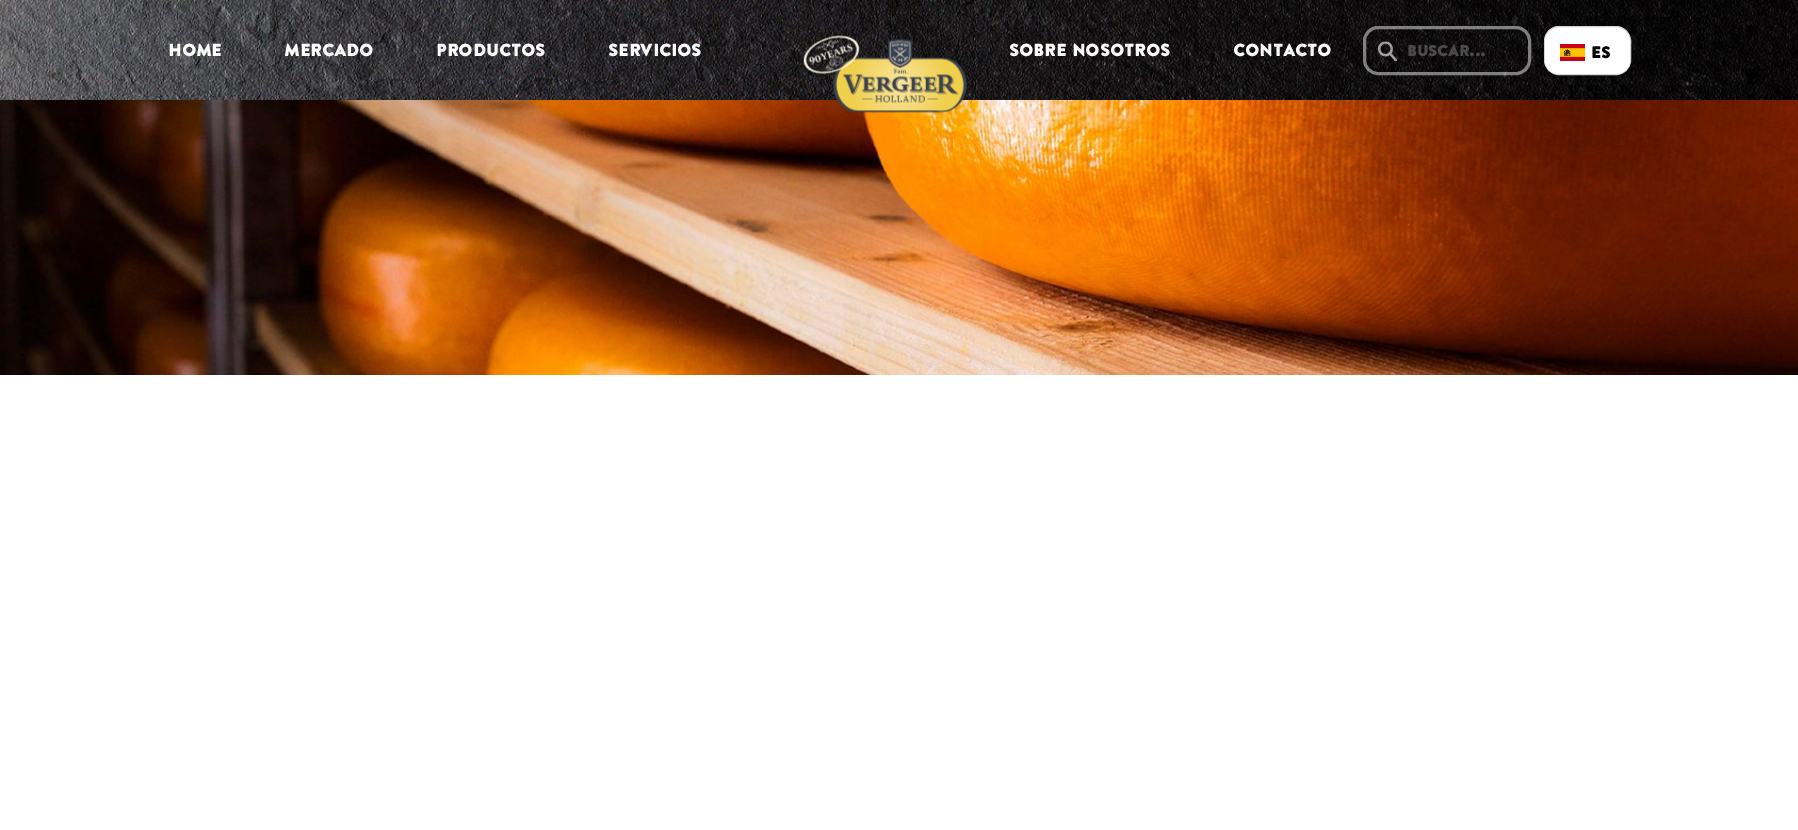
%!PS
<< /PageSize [1798 830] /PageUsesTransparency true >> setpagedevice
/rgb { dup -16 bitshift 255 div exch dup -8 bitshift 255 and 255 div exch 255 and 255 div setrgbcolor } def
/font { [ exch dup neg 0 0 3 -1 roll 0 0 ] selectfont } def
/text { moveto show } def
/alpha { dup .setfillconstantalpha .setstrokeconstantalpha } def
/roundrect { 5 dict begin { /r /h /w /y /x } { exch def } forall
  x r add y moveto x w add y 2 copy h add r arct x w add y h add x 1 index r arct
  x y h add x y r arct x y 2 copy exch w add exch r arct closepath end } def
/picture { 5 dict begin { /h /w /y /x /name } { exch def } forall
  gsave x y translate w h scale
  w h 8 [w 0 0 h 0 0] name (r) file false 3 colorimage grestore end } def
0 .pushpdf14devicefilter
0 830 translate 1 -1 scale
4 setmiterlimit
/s1 { /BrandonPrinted-Bold 16.9 font 16#FFFFFF rgb } def
/s2 { /BrandonPrinted-Bold 15 font 16#4C4B4C rgb } def
/s3 { /BrandonPrinted-Bold 16 font 16#000000 rgb } def
16#FFFFFF rgb
0 0 1798 830 rectfill
(pic5.raw) 0 99 1798 276 picture
(pic1.raw) 0 0 1798 100 picture
s1
(Home) 168 56 text
(Mercado) 284 56 text
(Productos) 436 56 text
(Servicios) 608 56 text
(pic2.raw) 803 35 164 78 picture
(Sobre Nosotros) 1009 56 text
(Contacto) 1233 56 text
(pic3.raw) 1378 41 19 20 picture
0.6 alpha
16#CCCCCC rgb
3 setlinewidth
1364.5 27.5 165 46 13.5 roundrect stroke
1 alpha
s2
(Buscar...) 1407 56 text
16#FFFFFF rgb
1544.5 26.5 86 48 14.5 roundrect gsave fill grestore
16#D3D3D3 rgb
1 setlinewidth
stroke
16#FFFFFF rgb
1545 28 85 46 14 roundrect fill
(pic4.raw) 1560 44 25 17 picture
s3
(es) 1591 58 text
.poppdf14devicefilter showpage
